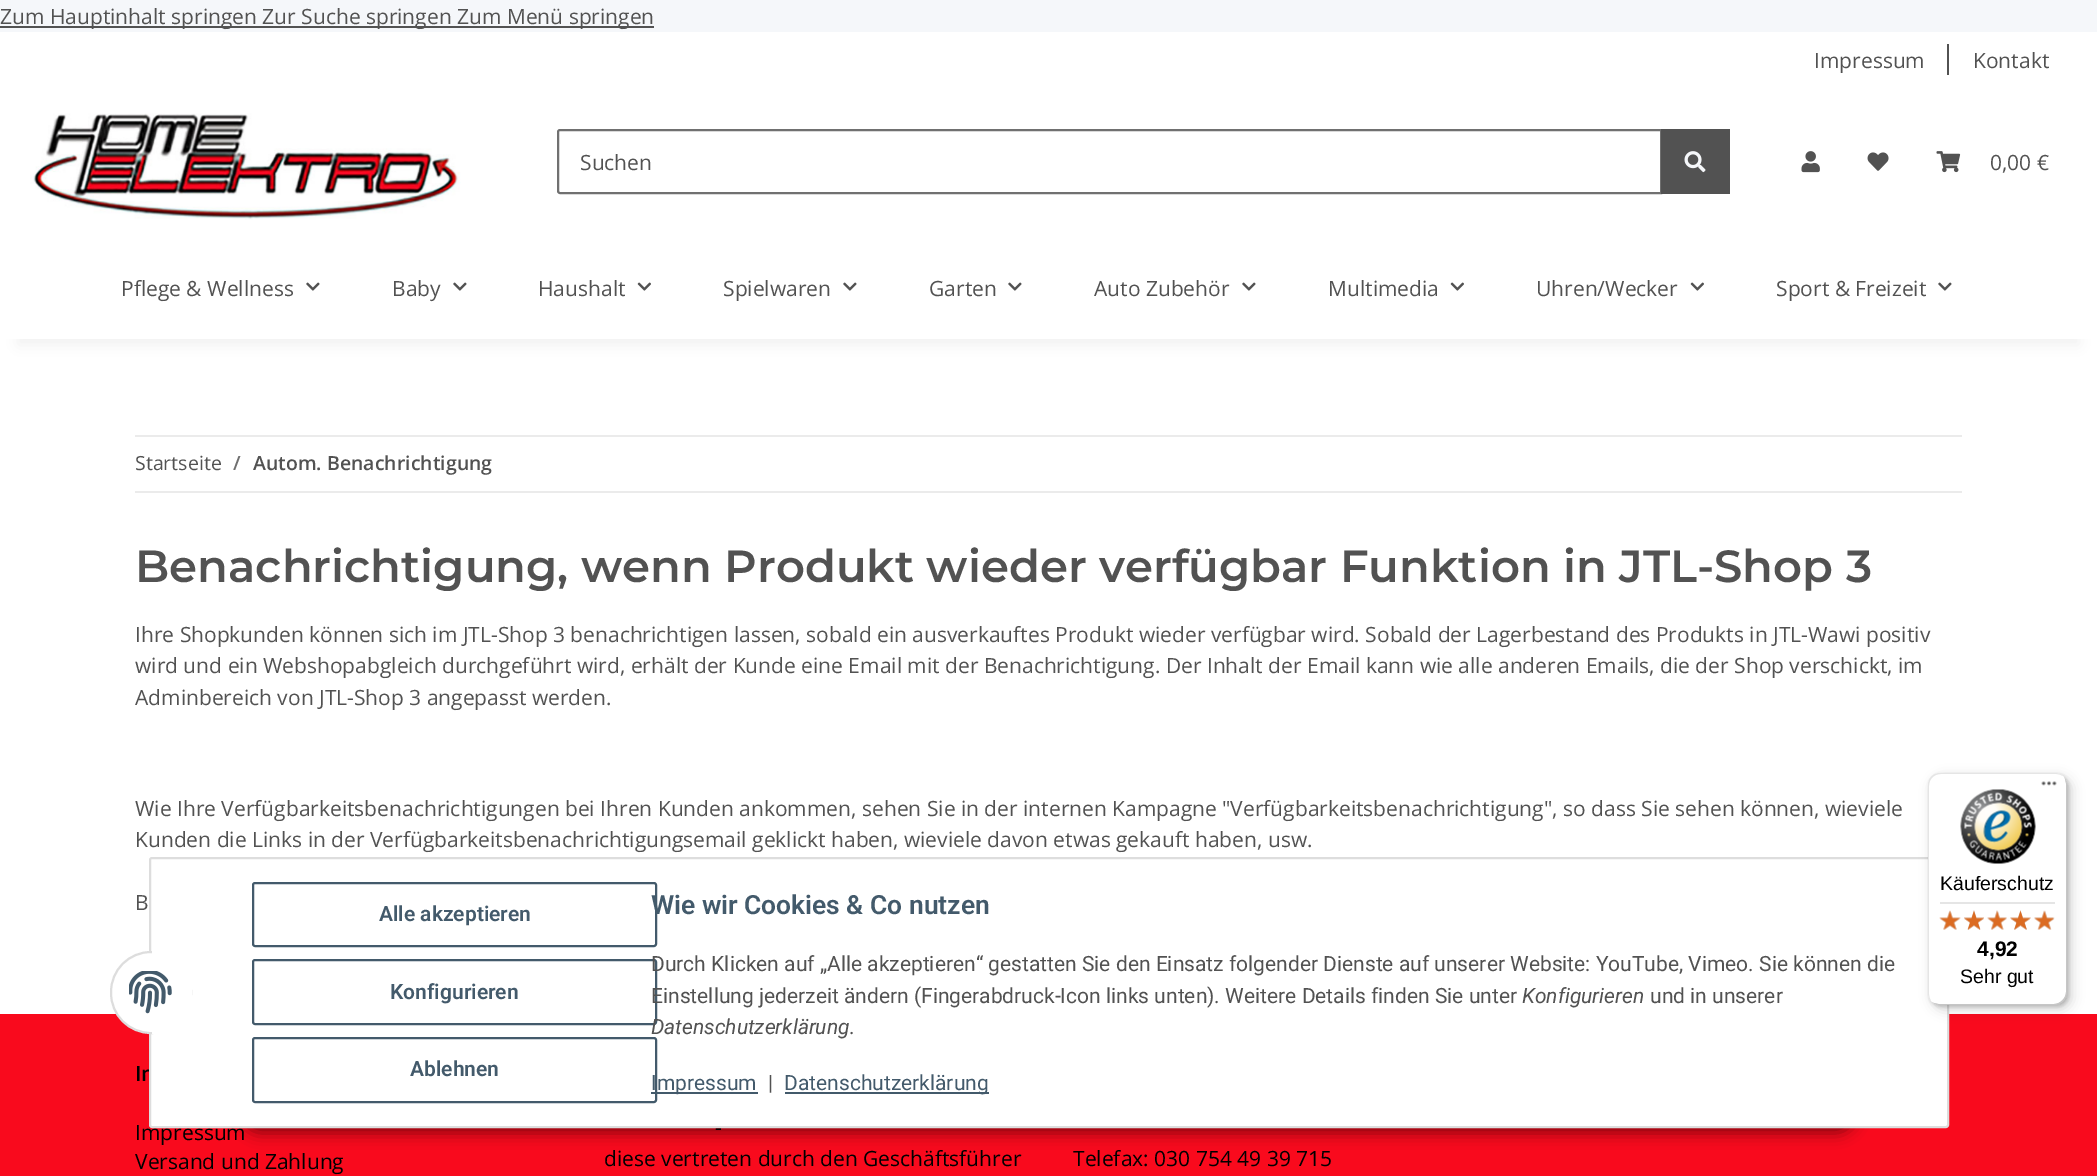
%!PS
<< /PageSize [2097 1176] /PageUsesTransparency true >> setpagedevice
/rgb { dup -16 bitshift 255 div exch dup -8 bitshift 255 and 255 div exch 255 and 255 div setrgbcolor } def
/font { [ exch dup neg 0 0 3 -1 roll 0 0 ] selectfont } def
/text { moveto show } def
/alpha { dup .setfillconstantalpha .setstrokeconstantalpha } def
/roundrect { 5 dict begin { /r /h /w /y /x } { exch def } forall
  x r add y moveto x w add y 2 copy h add r arct x w add y h add x 1 index r arct
  x y h add x y r arct x y 2 copy exch w add exch r arct closepath end } def
/shadow { 12 dict begin { /a /b /q /h /w /y /x } { exch def } forall gsave /was 0 def
  9 -2 -9 { dup b mul 4 div /e exch def 1 sub .425 mul 2.718 exch exp 1 add a .99 .min exch div /now exch def
    1 1 now sub 1 was sub div sub alpha /was now def
    w h .min e 2 mul add 0 gt { x e sub y e sub w e 2 mul add h e 2 mul add
      q e add b .6 mul add w h .min 2 div e add .min 0 .max roundrect fill } if } for grestore end } def
/picture { 5 dict begin { /h /w /y /x /name } { exch def } forall
  gsave x y translate w h scale
  w h 8 [w 0 0 h 0 0] name (r) file false 3 colorimage grestore end } def
0 .pushpdf14devicefilter
0 1176 translate 1 -1 scale
4 setmiterlimit
/s1 { /OpenSans-Regular 21 font 16#525252 rgb } def
/s2 { /OpenSans-Regular 19.5 font 16#525252 rgb } def
/s3 { /OpenSans-SemiBold 19.5 font 16#707070 rgb } def
/s4 { /OpenSans-SemiBold 19.5 font 16#525252 rgb } def
/s5 { /Montserrat-SemiBold 45 font 16#525252 rgb } def
/s6 { /OpenSans-SemiBold 21 font 16#000000 rgb } def
/s7 { /OpenSans-Regular 21 font 16#000000 rgb } def
/s8 { /Roboto-SemiBold 21 font 16#435A6B rgb } def
/s9 { /Roboto-SemiBold 26.4 font 16#435A6B rgb } def
/s10 { /Roboto-Regular 21 font 16#525252 rgb } def
/s11 { /Roboto-Italic 21 font 16#525252 rgb } def
/s12 { /Roboto-Regular 21 font 16#435A6B rgb } def
/s13 { /LiberationSans-Regular 19.5 font 16#000000 rgb } def
/s14 { /LiberationSans-Bold 21 font 16#000000 rgb } def
16#F5F7FA rgb
0 0 2097 1176 rectfill
16#525252 rgb
0 26 654 2 rectfill
s1
(Zum Hauptinhalt springen Zur Suche springen Zum Menü springen) 0 24 text
16#FFFFFF rgb
0 339 2097 675 rectfill
16#000000 rgb
18 74 2061 271 0 7 0.06 shadow
16#FFFFFF rgb
0 32 2097 307 rectfill
s1
(Impressum) 1814 68 text
1947 44 2 31 rectfill
(Kontakt) 1973 68 text
(pic1.raw) 30 113 431 107 picture
16#707070 rgb
2 setlinewidth
560 130 moveto 1661 130 lineto 1661 193 lineto 560 193 lineto 559 193 558 192 558 191 curveto 558 132 lineto 558 131 559 130 560 130 curveto closepath stroke
s1
(Suchen) 580 170 text
1661 129 69 65 rectfill
(pic2.raw) 1684 151 22 22 picture
(pic3.raw) 1801 151 19 22 picture
(pic4.raw) 1867 152 22 19 picture
(pic5.raw) 1936 151 25 22 picture
(0,00 €) 1990 170 text
(Pflege & Wellness) 121 296 text
(pic6.raw) 306 282 14 9 picture
(Baby) 392 296 text
(pic6.raw) 453 282 14 9 picture
(Haushalt) 538 296 text
(pic7.raw) 637 282 14 9 picture
(Spielwaren) 723 296 text
(pic6.raw) 843 282 14 9 picture
(Garten) 929 296 text
(pic6.raw) 1008 282 14 9 picture
(Auto Zubehör) 1094 296 text
(pic6.raw) 1242 282 14 9 picture
(Multimedia) 1328 296 text
(pic7.raw) 1450 282 14 9 picture
(Uhren/Wecker) 1536 296 text
(pic7.raw) 1690 282 14 9 picture
(Sport & Freizeit) 1776 296 text
(pic6.raw) 1938 282 14 9 picture
16#EBEBEB rgb
135 435 1827 2 rectfill
135 491 1827 2 rectfill
s2
(Startseite) 135 470 text
s3
(/) 233 470 text
s4
(Autom. Benachrichtigung) 253 470 text
s5
(Benachrichtigung, wenn Produkt wieder verfügbar Funktion in JTL-Shop 3) 135 582 text
s1
(Ihre Shopkunden können sich im JTL-Shop 3 benachrichtigen lassen, sobald ein ausverkauftes Produkt wieder verfügbar wird. Sobald der Lagerbestand des Produkts in JTL-Wawi positiv) 135 642 text
(wird und ein Webshopabgleich durchgeführt wird, erhält der Kunde eine Email mit der Benachrichtigung. Der Inhalt der Email kann wie alle anderen Emails, die der Shop verschickt, im) 135 673 text
(Adminbereich von JTL-Shop 3 angepasst werden.) 135 705 text
(Wie Ihre Verfügbarkeitsbenachrichtigungen bei Ihren Kunden ankommen, sehen Sie in der internen Kampagne "Verfügbarkeitsbenachrichtigung", so dass Sie sehen können, wieviele) 135 816 text
(Kunden die Links in der Verfügbarkeitsbenachrichtigungsemail geklickt haben, wieviele davon etwas gekauft haben, usw.) 135 847 text
(B) 135 910 text
16#F90A1D rgb
0 1014 2097 162 rectfill
16#000000 rgb
240 1085 1617 48 24 7.5 0.45 shadow
s6
(In) 135 1081 text
s7
(Impressum) 135 1140 text
16#FFFFFF rgb
150 858 1798 269 2 roundrect gsave fill grestore
16#DDDDDD rgb
stroke
16#FFFFFF rgb
111 952 80 81 40 roundrect gsave fill grestore
16#DDDDDD rgb
stroke
16#FFFFFF rgb
152 951 40 83 rectfill
(pic8.raw) 129 971 43 43 picture
16#435A6B rgb
253 883 403 63 2 roundrect stroke
s8
(Alle akzeptieren) 379 921 text
253 960 403 64 2 roundrect stroke
(Konfigurieren) 390 999 text
253 1038 403 64 2 roundrect stroke
(Ablehnen) 410 1076 text
s9
(Wie wir Cookies & Co nutzen) 651 914 text
s10
(Durch Klicken auf „Alle akzeptieren“ gestatten Sie den Einsatz folgender Dienste auf unserer Website: YouTube, Vimeo. Sie können die) 651 971 text
(Einstellung jederzeit ändern \(Fingerabdruck-Icon links unten\). Weitere Details finden Sie unter) 651 1003 text
s11
(Konfigurieren) 1522 1003 text
s10
(und in unserer) 1650 1003 text
s11
(Datenschutzerklärung) 651 1034 text
s10
(.) 849 1034 text
16#435A6B rgb
651 1092 107 2 rectfill
(Impressum) 651 1090 text
s10
(|) 768 1090 text
16#435A6B rgb
785 1092 204 2 rectfill
(Datenschutzerklärung) 784 1090 text
16#000000 rgb
1932 777 140 233 12 6 0.15 shadow
1929 774 140 233 12 1.5 0.15 shadow
16#FFFFFF rgb
1928 773 139 232 12 roundrect fill
16#E5E5E5 rgb
1941 774 moveto 2056 774 lineto 2059 774 2061 775 2063 776 curveto 2061 774 2058 773 2055 773 curveto 1940 773 lineto 1933 773 1928 778 1928 785 curveto 1928 993 lineto 1928 996 1929 999 1931 1001 curveto 1930 999 1929 997 1929 994 curveto 1929 786 lineto 1929 779 1934 774 1941 774 curveto closepath fill
0.2 alpha
16#000000 rgb
1934 1003 moveto 1935 1004 1938 1005 1940 1005 curveto 2055 1005 lineto 2062 1005 2067 1000 2067 993 curveto 2067 785 lineto 2067 783 2066 780 2065 779 curveto 2066 783 lineto 2066 992 lineto 2066 998 2060 1004 2054 1004 curveto 1938 1004 lineto closepath fill
16#323232 rgb
1932 1002 moveto 1934 1004 1937 1005 1940 1005 curveto 2055 1005 lineto 2062 1005 2067 1000 2067 993 curveto 2067 785 lineto 2067 782 2066 779 2064 777 curveto 2065 779 2066 781 2066 784 curveto 2066 992 lineto 2066 999 2061 1004 2054 1004 curveto 1939 1004 lineto 1936 1004 1934 1003 1932 1002 curveto closepath fill
0.3 alpha
16#FFFFFF rgb
1932 1002 moveto 1934 1004 1937 1005 1940 1005 curveto 2055 1005 lineto 2062 1005 2067 1000 2067 993 curveto 2067 785 lineto 2067 782 2066 779 2064 777 curveto 2065 779 2066 781 2066 784 curveto 2066 992 lineto 2066 999 2061 1004 2054 1004 curveto 1939 1004 lineto 1936 1004 1934 1003 1932 1002 curveto closepath fill
1 alpha
(pic9.raw) 2041 781 16 5 picture
(pic10.raw) 1960 789 76 75 picture
s13
(Käuferschutz) 1940 890 text
16#E5E5E5 rgb
1940 902 115 2 rectfill
(pic16.raw) 1940 911 20 19 picture
(pic11.raw) 1939 910 22 20 picture
(pic17.raw) 1964 910 20 20 picture
(pic12.raw) 1964 910 20 20 picture
(pic18.raw) 1987 910 20 20 picture
(pic13.raw) 1987 910 20 20 picture
(pic19.raw) 2010 910 21 20 picture
(pic14.raw) 2010 910 21 20 picture
(pic20.raw) 2034 911 21 19 picture
(pic15.raw) 2034 910 20 20 picture
s14
(4,92) 1977 956 text
s13
(Sehr gut) 1960 983 text
s7
(Versand und Zahlung) 135 1169 text
(-) 715 1135 text
(diese vertreten durch den Geschäftsführer) 604 1166 text
(Telefax: 030 754 49 39 715) 1073 1166 text
.poppdf14devicefilter showpage
